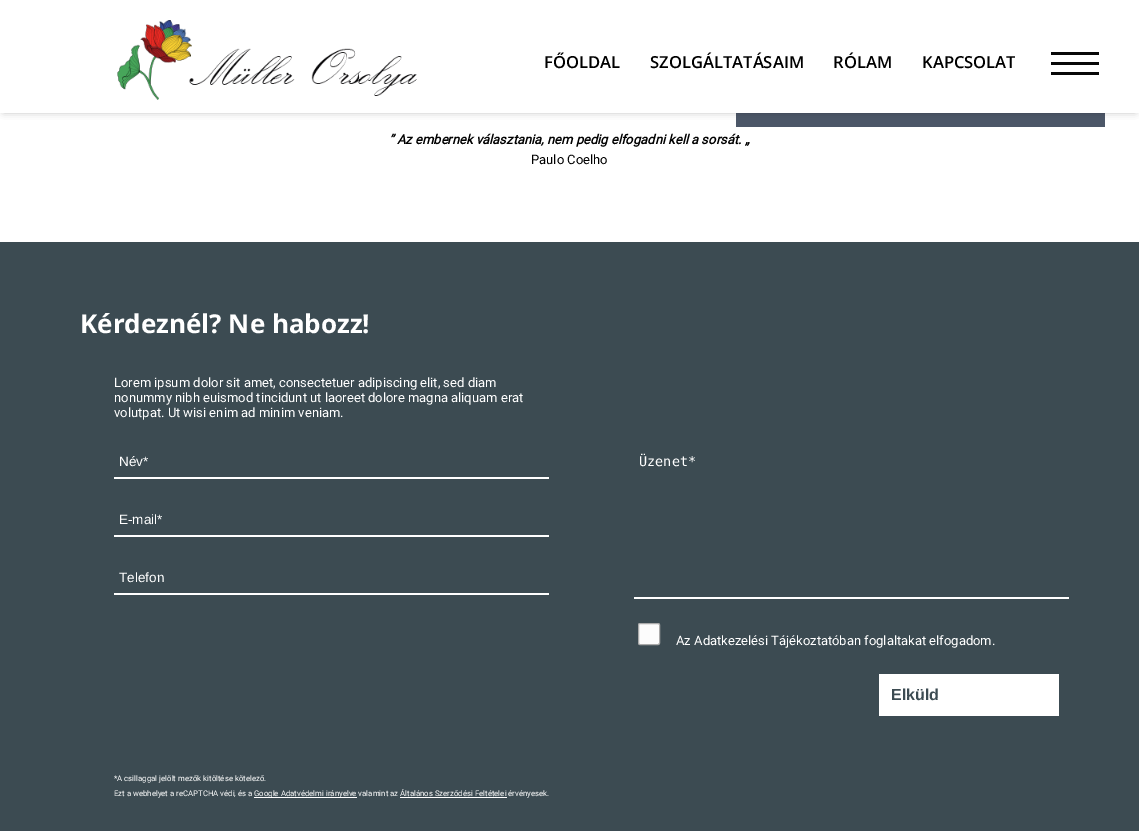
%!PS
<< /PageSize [1139 831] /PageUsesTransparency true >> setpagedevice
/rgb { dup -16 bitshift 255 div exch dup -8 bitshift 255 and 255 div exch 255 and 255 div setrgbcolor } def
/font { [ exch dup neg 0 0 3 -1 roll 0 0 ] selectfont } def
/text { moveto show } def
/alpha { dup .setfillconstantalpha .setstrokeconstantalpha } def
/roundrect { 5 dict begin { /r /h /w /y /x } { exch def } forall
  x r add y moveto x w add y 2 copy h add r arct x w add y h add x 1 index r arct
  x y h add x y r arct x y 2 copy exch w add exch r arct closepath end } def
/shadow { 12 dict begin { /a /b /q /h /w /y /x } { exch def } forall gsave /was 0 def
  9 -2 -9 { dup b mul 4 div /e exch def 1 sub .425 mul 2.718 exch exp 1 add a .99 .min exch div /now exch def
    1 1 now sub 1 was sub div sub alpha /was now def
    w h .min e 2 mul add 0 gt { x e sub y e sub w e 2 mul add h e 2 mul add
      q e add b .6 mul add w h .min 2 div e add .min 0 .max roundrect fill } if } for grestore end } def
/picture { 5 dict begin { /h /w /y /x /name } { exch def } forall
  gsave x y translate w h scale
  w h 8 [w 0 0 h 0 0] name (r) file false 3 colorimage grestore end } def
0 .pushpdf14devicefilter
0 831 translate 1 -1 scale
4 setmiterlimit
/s1 { /OpenSans-SemiBold 16.6 font 16#000000 rgb } def
/s2 { /Roboto-BoldItalic 13 font 16#000000 rgb } def
/s3 { /Roboto-Regular 13 font 16#000000 rgb } def
/s4 { /OpenSans-Bold 26 font 16#FFFFFF rgb } def
/s5 { /Roboto-Regular 13 font 16#FFFFFF rgb } def
/s6 { /LiberationSans-Regular 13.5 font 16#FFFFFF rgb } def
/s7 { /DejaVuSansMono-Regular 13.5 font 16#FFFFFF rgb } def
/s8 { /LiberationSans-Bold 16 font 16#3C4B52 rgb } def
/s9 { /Roboto-Regular 7.8 font 16#FFFFFF rgb } def
16#FFFFFF rgb
0 0 1139 831 rectfill
16#4C5768 rgb
736 113 369 14 rectfill
16#000000 rgb
4 6 1131 105 0 4 0.35 shadow
16#FFFFFF rgb
0 0 1139 113 rectfill
(pic1.raw) 117 20 300 80 picture
s1
(FŐOLDAL) 544 68 text
(SZOLGÁLTATÁSAIM) 650 68 text
(RÓLAM) 833 68 text
(KAPCSOLAT) 922 68 text
16#070707 rgb
1051 52 48 3 rectfill
1051 62 48 3 rectfill
1051 72 48 3 rectfill
s2
(” Az embernek választania, nem pedig elfogadni kell a sorsát. „) 389 144 text
s3
(Paulo Coelho) 531 164 text
16#3C4B52 rgb
0 242 1139 589 rectfill
s4
(Kérdeznél? Ne habozz!) 80 333 text
s5
(Lorem ipsum dolor sit amet, consectetuer adipiscing elit, sed diam) 114 387 text
(nonummy nibh euismod tincidunt ut laoreet dolore magna aliquam erat) 114 402 text
(volutpat. Ut wisi enim ad minim veniam.) 114 417 text
114 477 435 2 rectfill
s6
(Név*) 119 466 text
114 535 435 2 rectfill
(E-mail*) 119 524 text
114 593 435 2 rectfill
(Telefon) 119 582 text
634 597 435 2 rectfill
s7
(Üzenet*) 639 466 text
16#FCFCFC rgb
638.5 623.5 21 21 1.5 roundrect gsave fill grestore
16#AAAAAA rgb
stroke
s5
(Az Adatkezelési Tájékoztatóban foglaltakat elfogadom.) 676 645 text
879 674 180 42 rectfill
s8
(Elküld) 891 700 text
s9
(*A csillaggal jelölt mezők kitöltése kötelező.) 114 781 text
(Ezt a webhelyet a reCAPTCHA védi, és a) 114 796 text
254 797 103 1 rectfill
(Google Adatvédelmi irányelve valamint az Általános Szerződési Feltételei érvényesek.) 254 796 text
400 797 107 1 rectfill
.poppdf14devicefilter showpage
